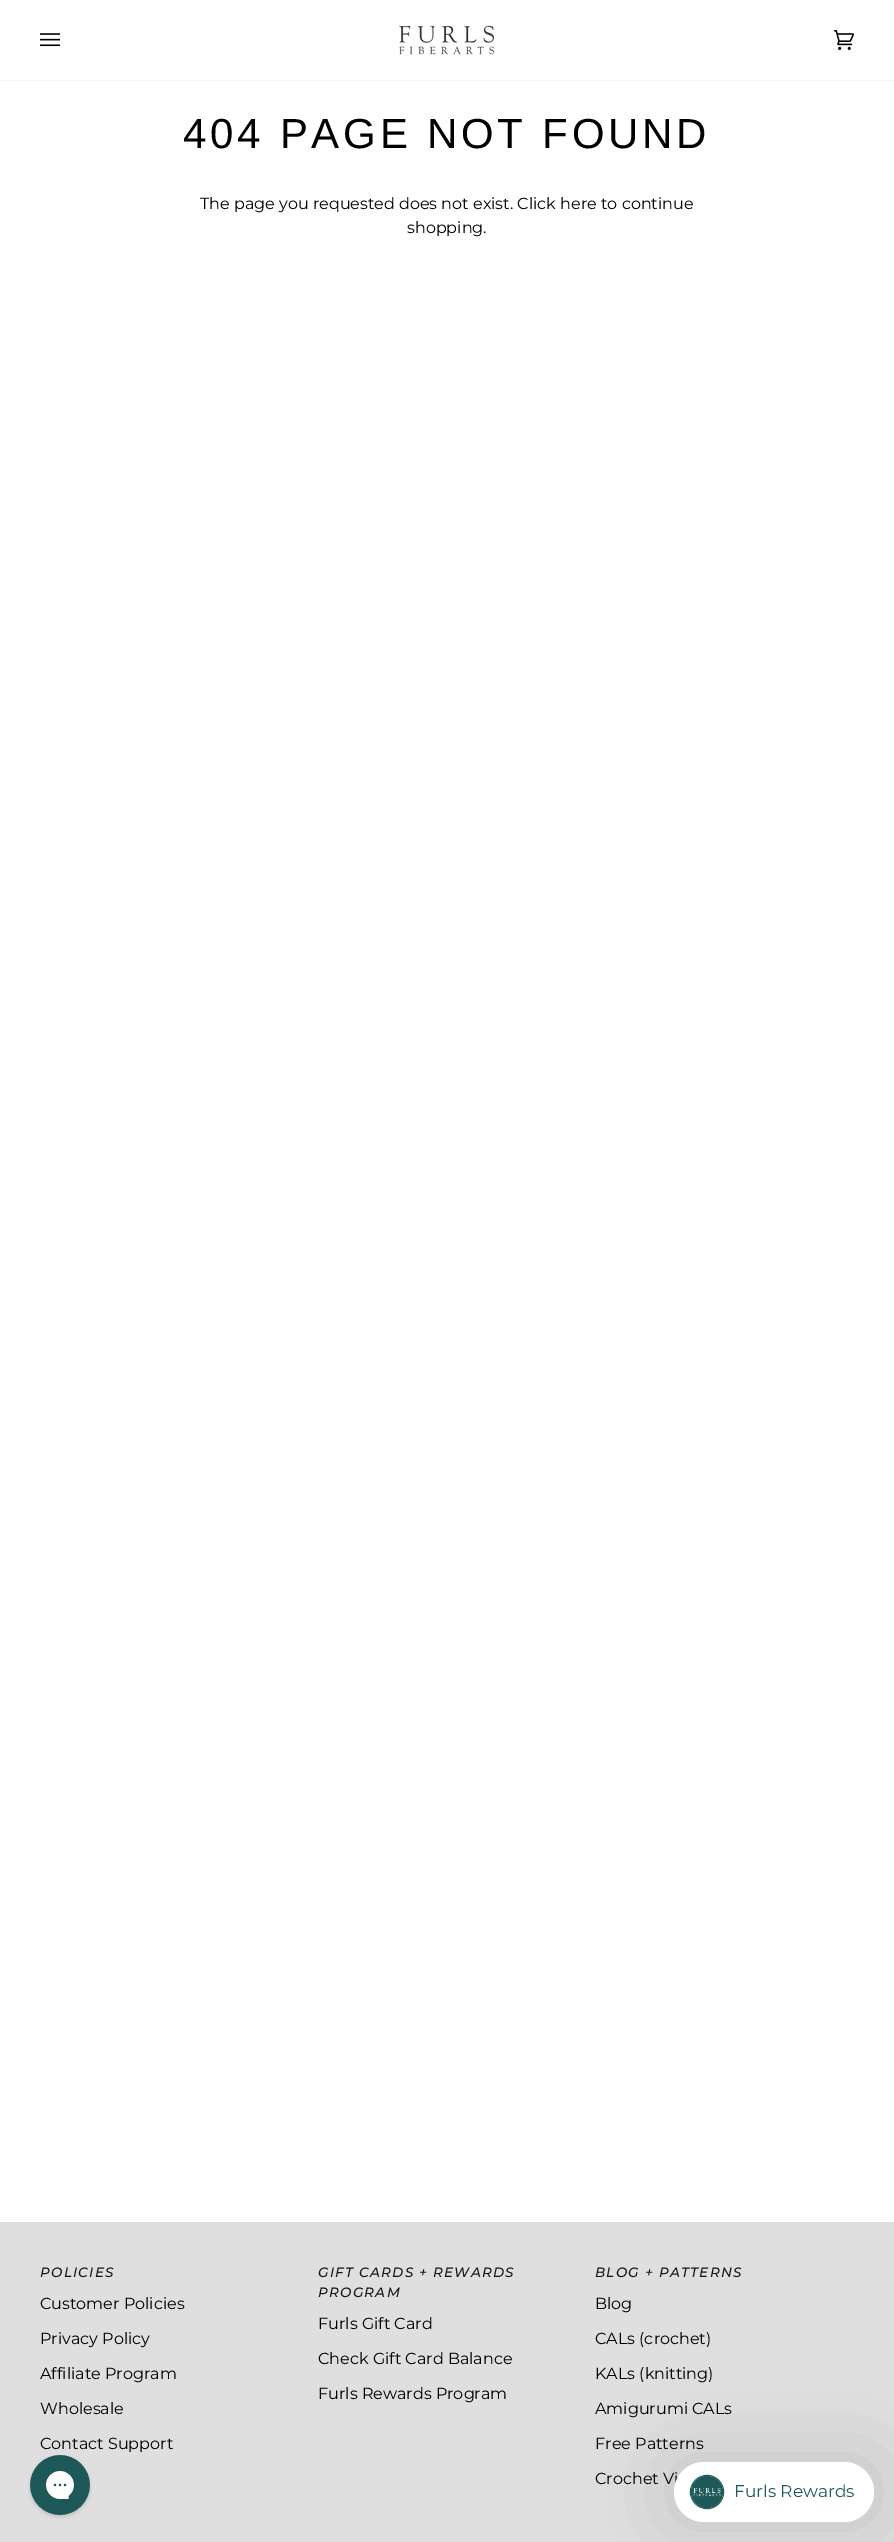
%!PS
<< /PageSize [894 2542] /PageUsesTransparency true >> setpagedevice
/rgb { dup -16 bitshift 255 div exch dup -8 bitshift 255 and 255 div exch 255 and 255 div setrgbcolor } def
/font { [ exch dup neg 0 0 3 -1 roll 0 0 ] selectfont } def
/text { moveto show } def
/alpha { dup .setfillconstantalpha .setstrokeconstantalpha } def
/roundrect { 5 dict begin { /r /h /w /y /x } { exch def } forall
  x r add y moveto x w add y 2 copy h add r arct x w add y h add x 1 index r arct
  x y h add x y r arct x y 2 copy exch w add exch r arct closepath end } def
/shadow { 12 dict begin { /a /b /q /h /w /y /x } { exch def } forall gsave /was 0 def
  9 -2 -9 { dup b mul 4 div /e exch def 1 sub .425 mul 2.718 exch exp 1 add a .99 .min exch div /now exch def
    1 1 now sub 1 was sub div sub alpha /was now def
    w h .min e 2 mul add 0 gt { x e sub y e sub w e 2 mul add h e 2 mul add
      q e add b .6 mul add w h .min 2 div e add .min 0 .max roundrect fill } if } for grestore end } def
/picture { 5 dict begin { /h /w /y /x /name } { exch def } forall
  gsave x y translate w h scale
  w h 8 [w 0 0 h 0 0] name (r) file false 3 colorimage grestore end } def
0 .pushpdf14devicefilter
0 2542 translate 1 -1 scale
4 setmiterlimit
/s1 { /Montserrat-Regular 16 font 16#000000 rgb } def
/s2 { /Montserrat-Regular 17 font 16#1D5959 rgb } def
16#FFFFFF rgb
0 0 894 2542 rectfill
16#F7F5F4 rgb
0 80 894 1 rectfill
(pic1.raw) 40 33 20 14 picture
(pic2.raw) 399 25 96 30 picture
(pic3.raw) 834 30 20 20 picture
/LiberationSans-Regular 42 font
16#000000 rgb
183 148 moveto 3.75 0 (404 PAGE NOT FOUND) ashow
s1
(The page you requested does not exist. Click here to continue) 200 209 text
(shopping.) 407 233 text
16#DFDFDF rgb
0 2222 894 320 rectfill
/Montserrat-MediumItalic 13.5 font
16#161616 rgb
40 2277 moveto 1.25 0 (POLICIES) ashow
s1
(Customer Policies) 40 2309 text
(Privacy Policy) 40 2344 text
(Affiliate Program) 40 2379 text
(Wholesale) 40 2414 text
(Contact Support) 40 2449 text
/Montserrat-MediumItalic 13.5 font
16#161616 rgb
318 2277 moveto 1.25 0 (GIFT CARDS + REWARDS) ashow
318 2297 moveto 1.25 0 (PROGRAM) ashow
s1
(Furls Gift Card) 318 2329 text
(Check Gift Card Balance) 318 2364 text
(Furls Rewards Program) 318 2399 text
/Montserrat-MediumItalic 13.5 font
16#161616 rgb
595 2277 moveto 1.25 0 (BLOG + PATTERNS) ashow
s1
(Blog) 595 2309 text
(CALs \(crochet\)) 595 2344 text
(KALs \(knitting\)) 595 2379 text
(Amigurumi CALs) 595 2414 text
(Free Patterns) 595 2449 text
(Crochet Vi) 595 2484 text
(pic4.raw) 28 2455 64 64 picture
674 2462 200 60 30 40 0.12 shadow
16#FFFFFF rgb
674 2462 200 60 30 roundrect fill
(pic5.raw) 689 2474 36 36 picture
s2
(Furls Rewards) 734 2497 text
.poppdf14devicefilter showpage
